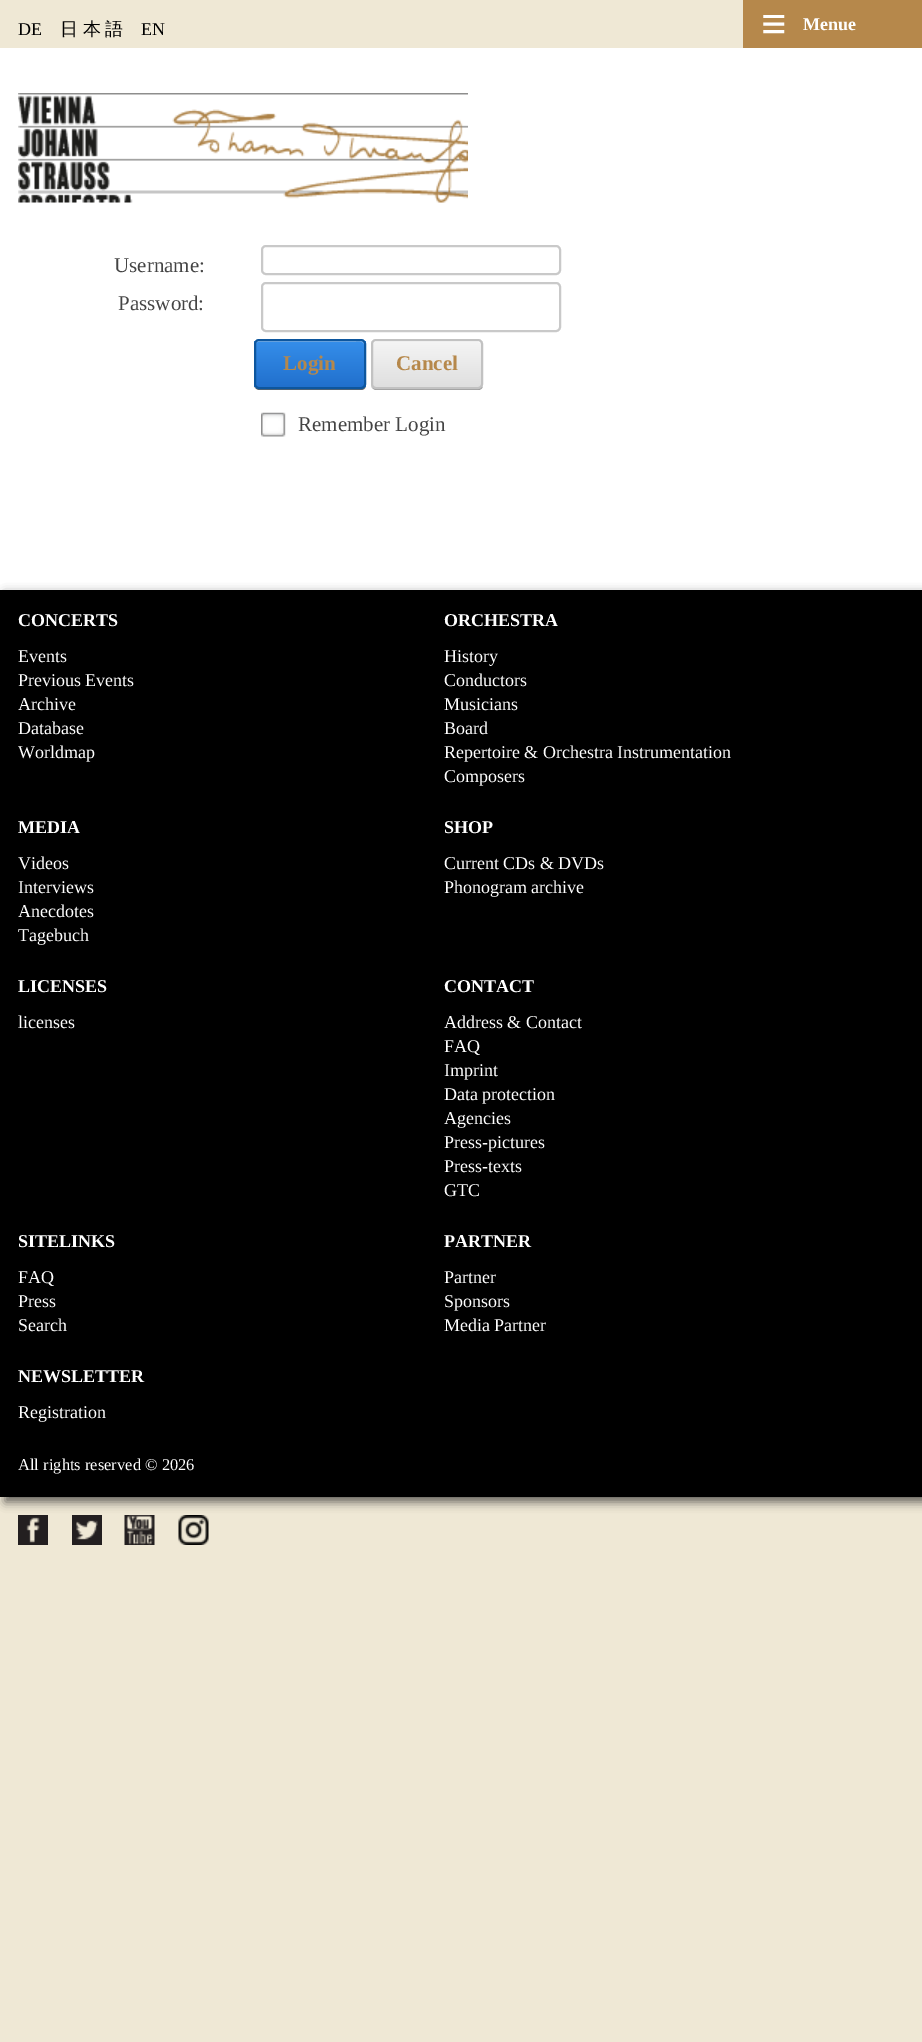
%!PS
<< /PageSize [922 2042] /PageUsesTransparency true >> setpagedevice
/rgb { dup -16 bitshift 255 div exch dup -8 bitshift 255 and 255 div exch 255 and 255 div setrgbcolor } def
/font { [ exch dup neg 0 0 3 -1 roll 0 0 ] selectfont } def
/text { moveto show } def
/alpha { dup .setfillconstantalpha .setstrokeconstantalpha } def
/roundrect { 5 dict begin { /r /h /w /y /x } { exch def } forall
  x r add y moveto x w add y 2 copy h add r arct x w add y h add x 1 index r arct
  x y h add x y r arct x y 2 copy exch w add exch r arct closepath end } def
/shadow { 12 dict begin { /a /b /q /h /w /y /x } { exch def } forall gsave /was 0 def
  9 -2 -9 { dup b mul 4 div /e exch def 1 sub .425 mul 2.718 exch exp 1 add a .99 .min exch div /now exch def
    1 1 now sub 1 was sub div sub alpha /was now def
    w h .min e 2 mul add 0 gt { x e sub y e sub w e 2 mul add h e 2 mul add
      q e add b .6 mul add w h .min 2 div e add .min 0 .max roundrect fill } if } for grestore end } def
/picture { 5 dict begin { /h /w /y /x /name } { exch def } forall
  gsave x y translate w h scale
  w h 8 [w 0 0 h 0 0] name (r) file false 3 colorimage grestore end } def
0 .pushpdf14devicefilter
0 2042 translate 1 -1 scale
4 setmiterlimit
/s1 { /LiberationSerif-Regular 18 font 16#000000 rgb } def
/s2 { /WenQuanYiZenHei-Medium 18 font 16#000000 rgb } def
/s3 { /LiberationSerif-Bold 45 font 16#FFFFFF rgb } def
/s4 { /LiberationSerif-Bold 18 font 16#FFFFFF rgb } def
/s5 { /LiberationSerif-Regular 21 font 16#444444 rgb } def
/s6 { /LiberationSerif-Bold 21 font 16#B6884B rgb } def
/s7 { /LiberationSerif-Regular 18 font 16#FFFFFF rgb } def
/s8 { /LiberationSerif-Regular 16.5 font 16#FFFFFF rgb } def
16#EFE8D5 rgb
0 0 922 2042 rectfill
s1
(DE) 18 35 text
s2
(日) 60 35 text
(本) 83 35 text
(語) 105 35 text
s1
(EN) 141 35 text
16#FFFFFF rgb
0 48 922 542 rectfill
16#B6884B rgb
743 0 179 48 rectfill
s3
(≡) 761 39 text
s4
(Menue) 803 30 text
(pic1.raw) 18 93 450 110 picture
s5
(Username:) 114 272 text
16#C9C9C9 rgb
2 setlinewidth
262 246 298 28 4 roundrect stroke
s5
(Password:) 118 310 text
16#C9C9C9 rgb
262 283 298 48 4 roundrect stroke
16#666666 rgb
254 386 moveto 255 388 257 390 259 390 curveto 361 390 lineto 364 390 366 388 366 385 curveto 366 384 lineto 366 386 364 388 362 388 curveto 258 388 lineto 256 388 255 388 254 386 curveto closepath fill
gsave
254 339 112 50 5 roundrect clip newpath
gsave 254 341 moveto 366 341 lineto 366 387 lineto 254 387 lineto closepath clip newpath
<< /ShadingType 2 /ColorSpace /DeviceRGB /Coords [310 341 310 387] /Extend [true true] /Function << /FunctionType 2 /Domain [0 1] /C0 [0.208 0.557 0.918] /C1 [0.129 0.439 0.804] /N 1 >> >> shfill grestore
grestore
0.4 alpha
16#FFFFFF rgb
258 342 moveto 345 342 lineto 368 342 364 338 364 359 curveto 364 386 lineto 365 386 365 385 365 384 curveto 365 344 lineto 365 342 364 341 362 341 curveto 258 341 lineto 256 341 255 342 255 344 curveto 255 345 lineto 255 343 256 342 258 342 curveto closepath fill
1 alpha
16#0D569E rgb
255 340 110 48 4 roundrect stroke
s6
(Login) 283 370 text
16#999999 rgb
371 386 moveto 372 388 374 390 376 390 curveto 478 390 lineto 481 390 483 388 483 385 curveto 483 384 lineto 483 386 481 388 478 388 curveto 375 388 lineto 373 388 372 388 371 386 curveto closepath fill
gsave
371 339 112 50 5 roundrect clip newpath
gsave 371 341 moveto 483 341 lineto 483 387 lineto 371 387 lineto closepath clip newpath
<< /ShadingType 2 /ColorSpace /DeviceRGB /Coords [427 341 427 387] /Extend [true true] /Function << /FunctionType 2 /Domain [0 1] /C0 [0.961 0.961 0.961] /C1 [0.875 0.875 0.875] /N 1 >> >> shfill grestore
grestore
16#FFFFFF rgb
375 342 moveto 478 342 lineto 480 342 482 343 482 345 curveto 482 336 464 341 462 341 curveto 392 341 lineto 390 341 372 336 372 345 curveto 372 343 373 342 375 342 curveto closepath fill
16#C2C2C2 rgb
372 340 110 48 4 roundrect stroke
s6
(Cancel) 396 370 text
(pic2.raw) 261 412 25 25 picture
s5
(Remember Login) 298 431 text
16#323232 rgb
5 594 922 908 0 5 0.75 shadow
16#000000 rgb
0 590 922 907 rectfill
s4
(CONCERTS) 18 626 text
s7
(Events) 18 662 text
(Previous Events) 18 686 text
(Archive) 18 710 text
(Database) 18 734 text
(Worldmap) 18 758 text
s4
(ORCHESTRA) 444 626 text
s7
(History) 444 662 text
(Conductors) 444 686 text
(Musicians) 444 710 text
(Board) 444 734 text
(Repertoire & Orchestra Instrumentation) 444 758 text
(Composers) 444 782 text
s4
(MEDIA) 18 833 text
s7
(Videos) 18 869 text
(Interviews) 18 893 text
(Anecdotes) 18 917 text
(Tagebuch) 18 941 text
s4
(SHOP) 444 833 text
s7
(Current CDs & DVDs) 444 869 text
(Phonogram archive) 444 893 text
s4
(LICENSES) 18 992 text
s7
(licenses) 18 1028 text
s4
(CONTACT) 444 992 text
s7
(Address & Contact) 444 1028 text
(FAQ) 444 1052 text
(Imprint) 444 1076 text
(Data protection) 444 1100 text
(Agencies) 444 1124 text
(Press-pictures) 444 1148 text
(Press-texts) 444 1172 text
(GTC) 444 1196 text
s4
(SITELINKS) 18 1247 text
s7
(FAQ) 18 1283 text
(Press) 18 1307 text
(Search) 18 1331 text
s4
(PARTNER) 444 1247 text
s7
(Partner) 444 1283 text
(Sponsors) 444 1307 text
(Media Partner) 444 1331 text
s4
(NEWSLETTER) 18 1382 text
s7
(Registration) 18 1418 text
s8
(All rights reserved © 2026) 18 1470 text
(pic3.raw) 18 1515 30 30 picture
(pic4.raw) 72 1515 30 30 picture
(pic5.raw) 124 1515 31 30 picture
(pic6.raw) 178 1515 31 30 picture
.poppdf14devicefilter showpage
